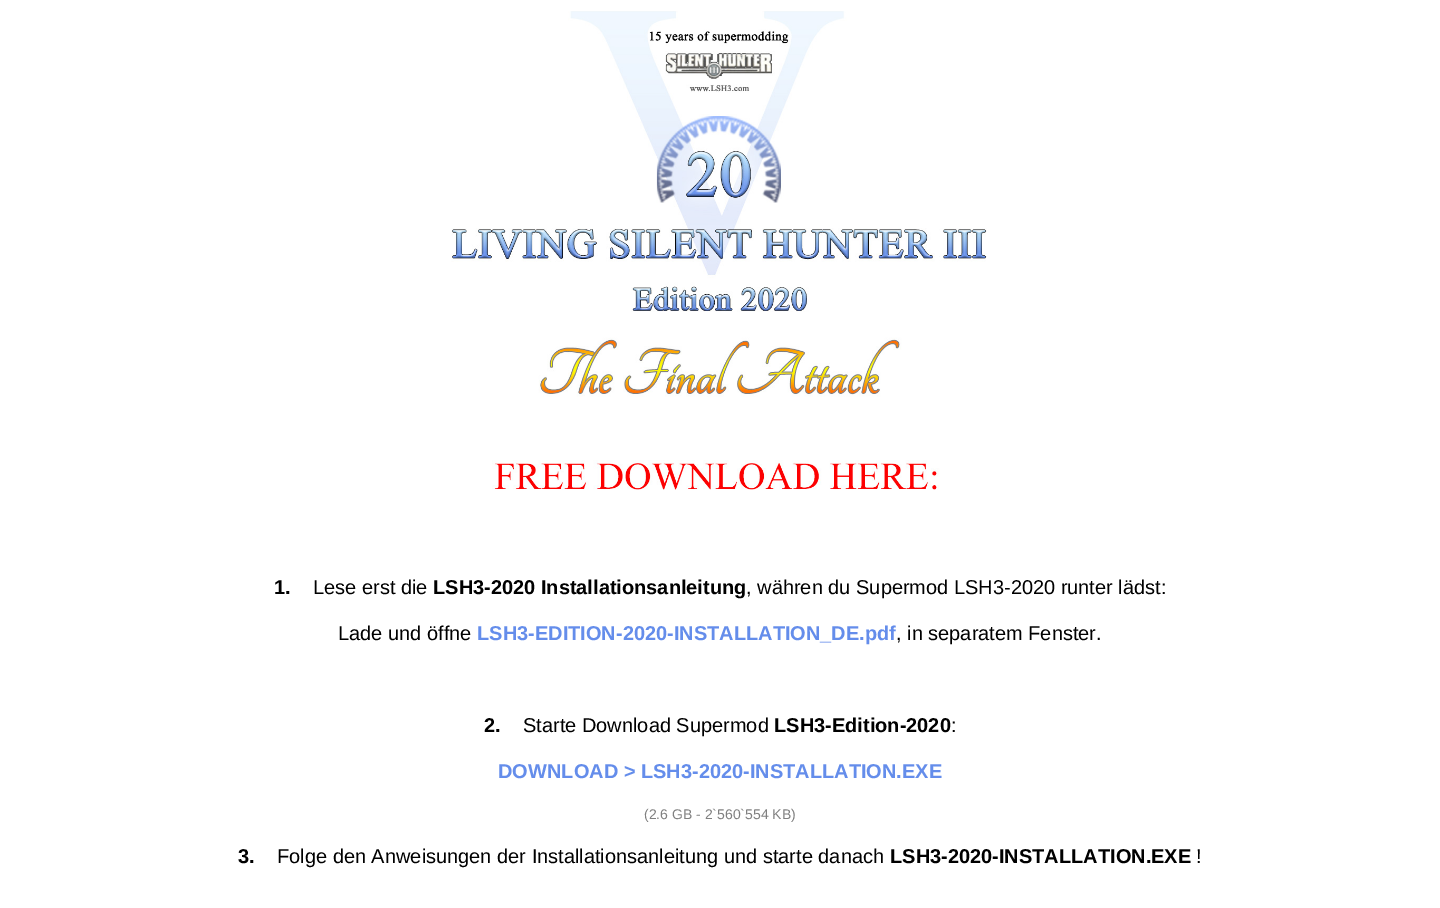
%!PS
<< /PageSize [1440 908] >> setpagedevice
/rgb { dup -16 bitshift 255 div exch dup -8 bitshift 255 and 255 div exch 255 and 255 div setrgbcolor } def
/font { [ exch dup neg 0 0 3 -1 roll 0 0 ] selectfont } def
/text { moveto show } def
/picture { 5 dict begin { /h /w /y /x /name } { exch def } forall
  gsave x y translate w h scale
  w h 8 [w 0 0 h 0 0] name (r) file false 3 colorimage grestore end } def
0 908 translate 1 -1 scale
4 setmiterlimit
/s1 { /LiberationSans-Bold 20 font 16#000000 rgb } def
/s2 { /LiberationSans-Regular 20 font 16#000000 rgb } def
/s3 { /LiberationSans-Bold 20 font 16#648DEB rgb } def
/s4 { /LiberationSans-Regular 14 font 16#808080 rgb } def
16#FFFFFF rgb
0 0 1440 908 rectfill
(pic1.raw) 451 11 536 479 picture
s1
(1.) 274 594 text
s2
(Lese erst die) 313 594 text
s1
(LSH3-2020 Installationsanleitung) 433 594 text
s2
(, währen du Supermod LSH3-2020 runter lädst:) 746 594 text
(Lade und öffne) 338 640 text
s3
(LSH3-EDITION-2020-INSTALLATION_DE.pdf) 477 640 text
s2
(, in separatem Fenster.) 896 640 text
s1
(2.) 484 732 text
s2
(Starte Download Supermod) 523 732 text
s1
(LSH3-Edition-2020) 774 732 text
s2
(:) 951 732 text
s3
(DOWNLOAD > LSH3-2020-INSTALLATION.EXE) 498 778 text
s4
(\(2.6 GB - 2`560`554 KB\)) 644 819 text
s1
(3.) 238 863 text
s2
(Folge den Anweisungen der Installationsanleitung und starte danach) 277 863 text
s1
(LSH3-2020-INSTALLATION.EXE) 890 863 text
s2
(!) 1196 863 text
showpage
